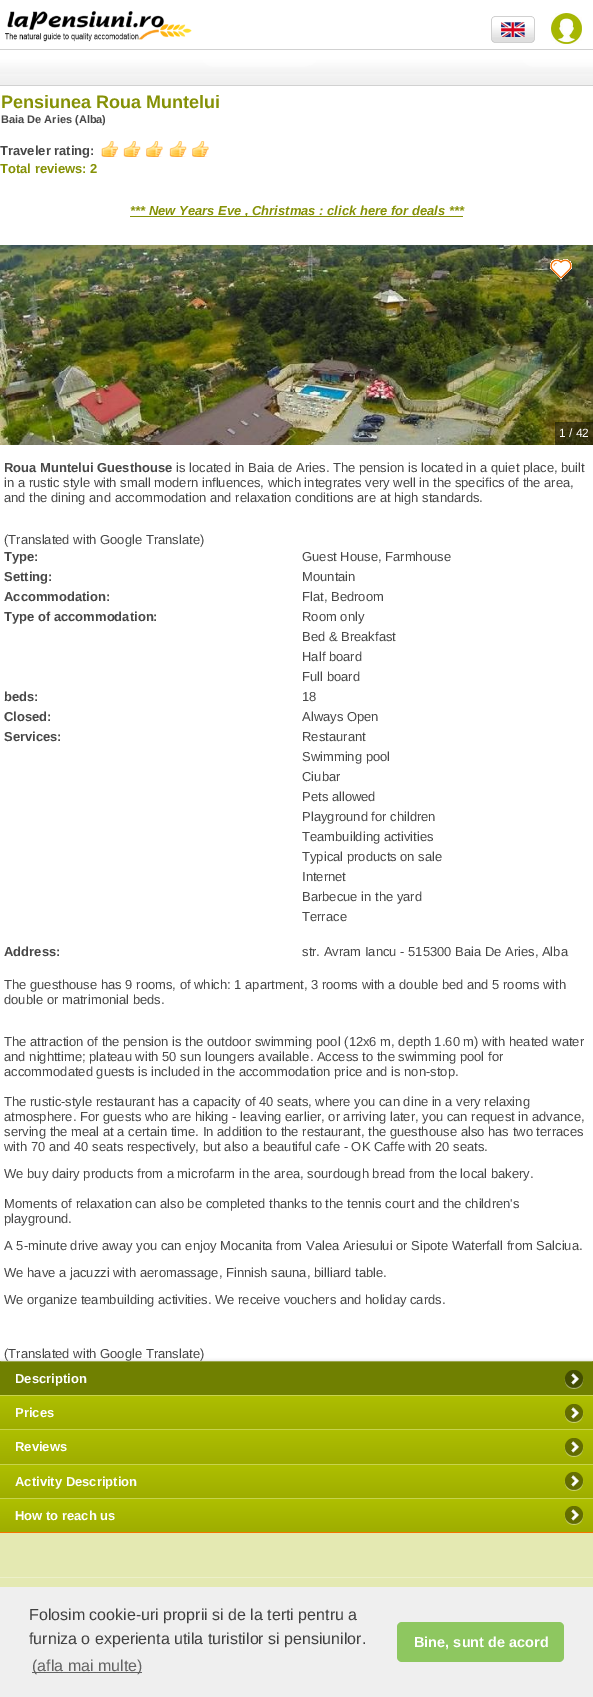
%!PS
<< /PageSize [593 1697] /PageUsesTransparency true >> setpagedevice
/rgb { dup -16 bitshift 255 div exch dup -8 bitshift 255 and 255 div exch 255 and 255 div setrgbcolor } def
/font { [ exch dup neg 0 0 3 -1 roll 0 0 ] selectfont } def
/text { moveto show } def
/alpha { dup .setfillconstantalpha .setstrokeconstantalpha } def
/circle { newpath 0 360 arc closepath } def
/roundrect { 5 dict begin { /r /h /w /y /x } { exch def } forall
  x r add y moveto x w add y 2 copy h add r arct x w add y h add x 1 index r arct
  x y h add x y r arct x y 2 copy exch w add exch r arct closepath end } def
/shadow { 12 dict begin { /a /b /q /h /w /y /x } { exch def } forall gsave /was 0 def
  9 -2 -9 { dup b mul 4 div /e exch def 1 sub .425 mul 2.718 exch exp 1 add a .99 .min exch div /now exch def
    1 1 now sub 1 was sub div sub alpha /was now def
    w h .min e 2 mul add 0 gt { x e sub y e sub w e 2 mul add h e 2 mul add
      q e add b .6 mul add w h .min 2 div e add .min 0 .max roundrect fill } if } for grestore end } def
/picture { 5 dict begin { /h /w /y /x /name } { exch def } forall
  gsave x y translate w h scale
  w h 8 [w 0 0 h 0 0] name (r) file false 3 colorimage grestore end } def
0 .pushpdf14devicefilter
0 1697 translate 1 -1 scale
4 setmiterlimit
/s1 { /LiberationSans-Bold 18 font 16#859106 rgb } def
/s2 { /LiberationSans-Bold 11 font 16#474747 rgb } def
/s3 { /LiberationSans-Bold 13 font 16#474747 rgb } def
/s4 { /LiberationSans-Bold 13 font 16#859106 rgb } def
/s5 { /LiberationSans-BoldItalic 13 font 16#859106 rgb } def
/s6 { /LiberationSans-Regular 12 font 16#FFFFFF rgb } def
/s7 { /LiberationSans-Regular 13 font 16#474747 rgb } def
/s8 { /LiberationSans-Bold 13 font 16#FFFFFF rgb } def
/s9 { /LiberationSans-Regular 16 font 16#404040 rgb } def
/s10 { /LiberationSans-Regular 16 font 16#636363 rgb } def
/s11 { /LiberationSans-Bold 14.5 font 16#FFFFFF rgb } def
16#FFFFFF rgb
0 0 593 1697 rectfill
(pic1.raw) 5 11 187 31 picture
(pic2.raw) 491 16 44 27 picture
(pic3.raw) 551 13 31 31 picture
(pic4.raw) 0 49 593 37 picture
s1
(Pensiunea Roua Muntelui) 1 108 text
s2
(Baia De Aries \(Alba\)) 1 123 text
s3
(Traveler rating:) 0 155 text
(pic5.raw) 101 141 108 16 picture
s4
(Total reviews: 2) 0 173 text
130 216 333 1 rectfill
s5
(*** New Years Eve , Christmas : click here for deals ***) 130 215 text
(pic7.raw) 0 245 593 200 picture
(pic6.raw) 550 259 22 20 picture
0.5 alpha
16#000000 rgb
555 422 38 23 rectfill
1 alpha
s6
(1 / 42) 559 437 text
s3
(Roua Muntelui Guesthouse) 4 472 text
s7
(is located in Baia de Aries. The pension is located in a quiet place, built) 176 472 text
(in a rustic style with small modern influences, which integrates very well in the specifics of the area,) 4 487 text
(and the dining and accommodation and relaxation conditions are at high standards.) 4 502 text
(\(Translated with Google Translate\)) 4 544 text
s3
(Type:) 4 561 text
s7
(Guest House, Farmhouse) 302 561 text
s3
(Setting:) 4 581 text
s7
(Mountain) 302 581 text
s3
(Accommodation:) 4 601 text
s7
(Flat, Bedroom) 302 601 text
s3
(Type of accommodation:) 4 621 text
s7
(Room only) 302 621 text
(Bed & Breakfast) 302 641 text
(Half board) 302 661 text
(Full board) 302 681 text
s3
(beds:) 4 701 text
s7
(18) 302 701 text
s3
(Closed:) 4 721 text
s7
(Always Open) 302 721 text
s3
(Services:) 4 741 text
s7
(Restaurant) 302 741 text
(Swimming pool) 302 761 text
(Ciubar) 302 781 text
(Pets allowed) 302 801 text
(Playground for children) 302 821 text
(Teambuilding activities) 302 841 text
(Typical products on sale) 302 861 text
(Internet) 302 881 text
(Barbecue in the yard) 302 901 text
(Terrace) 302 921 text
s3
(Address:) 4 956 text
s7
(str. Avram Iancu - 515300 Baia De Aries, Alba) 302 956 text
(The guesthouse has 9 rooms, of which: 1 apartment, 3 rooms with a double bed and 5 rooms with) 4 989 text
(double or matrimonial beds.) 4 1004 text
(The attraction of the pension is the outdoor swimming pool \(12x6 m, depth 1.60 m\) with heated water) 4 1046 text
(and nighttime; plateau with 50 sun loungers available. Access to the swimming pool for) 4 1061 text
(accommodated guests is included in the accommodation price and is non-stop.) 4 1076 text
(The rustic-style restaurant has a capacity of 40 seats, where you can dine in a very relaxing) 4 1106 text
(atmosphere. For guests who are hiking - leaving earlier, or arriving later, you can request in advance,) 4 1121 text
(serving the meal at a certain time. In addition to the restaurant, the guesthouse also has two terraces) 4 1136 text
(with 70 and 40 seats respectively, but also a beautiful cafe - OK Caffe with 20 seats.) 4 1151 text
(We buy dairy products from a microfarm in the area, sourdough bread from the local bakery.) 4 1178 text
(Moments of relaxation can also be completed thanks to the tennis court and the children's) 4 1208 text
(playground.) 4 1223 text
(A 5-minute drive away you can enjoy Mocanita from Valea Ariesului or Sipote Waterfall from Salciua.) 4 1250 text
(We have a jacuzzi with aeromassage, Finnish sauna, billiard table.) 4 1277 text
(We organize teambuilding activities. We receive vouchers and holiday cards.) 4 1304 text
16#000000 rgb
0 1362 593 171 1.5 2 0.3 shadow
s7
(\(Translated with Google Translate\)) 4 1358 text
16#708001 rgb
1.5 1361 moveto 591.5 1361 lineto 592.5 1361 593 1361.5 593 1362.5 curveto 593 1395 lineto 0 1395 lineto 0 1362.5 lineto 0 1361.5 0.5 1361 1.5 1361 curveto closepath fill
0.3 alpha
16#FFFFFF rgb
1 1361 591 1 rectfill
1 alpha
s8
(Description) 15 1383 text
16#A9B367 rgb
565 1379.5 moveto 564.5 1392 583.5 1392 583 1379.5 curveto 582.5 1390.5 565.5 1390.5 565 1379.5 curveto closepath fill
0.4 alpha
16#000000 rgb
574 1379 9 circle fill
1 alpha
(pic8.raw) 571 1373 8 12 picture
gsave 0 1396 moveto 593 1396 lineto 593 1429 lineto 0 1429 lineto closepath clip newpath
<< /ShadingType 2 /ColorSpace /DeviceRGB /Coords [297 1395 297 1429] /Extend [true true] /Function << /FunctionType 2 /Domain [0 1] /C0 [0.686 0.753 0] /C1 [0.62 0.678 0] /N 1 >> >> shfill grestore
16#C7D34D rgb
0 1395 593 1 rectfill
s8
(Prices) 15 1417 text
16#C7D066 rgb
565 1413.5 moveto 564.5 1426 583.5 1426 583 1413.5 curveto 582.5 1424.5 565.5 1424.5 565 1413.5 curveto closepath fill
0.4 alpha
16#000000 rgb
574 1413 9 circle fill
1 alpha
(pic9.raw) 571 1407 8 12 picture
gsave 0 1430 moveto 593 1430 lineto 593 1464 lineto 0 1464 lineto closepath clip newpath
<< /ShadingType 2 /ColorSpace /DeviceRGB /Coords [297 1429 297 1464] /Extend [true true] /Function << /FunctionType 2 /Domain [0 1] /C0 [0.686 0.753 0] /C1 [0.62 0.678 0] /N 1 >> >> shfill grestore
16#C7D34D rgb
0 1429 593 1 rectfill
s8
(Reviews) 15 1451 text
16#C7D166 rgb
565 1447.5 moveto 564.5 1460 583.5 1460 583 1447.5 curveto 582.5 1458.5 565.5 1458.5 565 1447.5 curveto closepath fill
0.4 alpha
16#000000 rgb
574 1447 9 circle fill
1 alpha
(pic10.raw) 571 1441 8 12 picture
gsave 0 1465 moveto 593 1465 lineto 593 1498 lineto 0 1498 lineto closepath clip newpath
<< /ShadingType 2 /ColorSpace /DeviceRGB /Coords [297 1464 297 1498] /Extend [true true] /Function << /FunctionType 2 /Domain [0 1] /C0 [0.686 0.753 0] /C1 [0.62 0.678 0] /N 1 >> >> shfill grestore
16#C7D34D rgb
0 1464 593 1 rectfill
s8
(Activity Description) 15 1486 text
16#C7D166 rgb
565 1481.5 moveto 564.5 1494 583.5 1494 583 1481.5 curveto 582.5 1492.5 565.5 1492.5 565 1481.5 curveto closepath fill
0.4 alpha
16#000000 rgb
574 1481 9 circle fill
1 alpha
(pic11.raw) 571 1475 8 12 picture
gsave 0 1498 moveto 593 1498 lineto 593 1530.5 lineto 593 1531.5 592.5 1532 591.5 1532 curveto 1.5 1532 lineto 0.5 1532 0 1531.5 0 1530.5 curveto closepath clip newpath
<< /ShadingType 2 /ColorSpace /DeviceRGB /Coords [297 1498 297 1532] /Extend [true true] /Function << /FunctionType 2 /Domain [0 1] /C0 [0.686 0.753 0] /C1 [0.62 0.678 0] /N 1 >> >> shfill grestore
16#C7D34D rgb
0 1498 593 1 rectfill
s8
(How to reach us) 15 1520 text
16#C7D166 rgb
565 1515.5 moveto 564.5 1528 583.5 1528 583 1515.5 curveto 582.5 1526.5 565.5 1526.5 565 1515.5 curveto closepath fill
0.4 alpha
16#000000 rgb
574 1515 9 circle fill
1 alpha
(pic11.raw) 571 1509 8 12 picture
16#E4E9B2 rgb
0 1533 593 54 rectfill
16#F47300 rgb
0 1532 593 1 rectfill
16#ECF0C9 rgb
0 1577 593 1 rectfill
16#EFEFEF rgb
0 1587 593 110 rectfill
s9
(Folosim cookie-uri proprii si de la terti pentru a) 29 1620 text
(furniza o experienta utila turistilor si pensiunilor.) 29 1644 text
16#636363 rgb
32 1672 110 1 rectfill
(\(afla mai multe\)) 32 1671 text
16#8EC760 rgb
397 1622 167 40 5 roundrect fill
s11
(Bine, sunt de acord) 414 1647 text
.poppdf14devicefilter showpage
